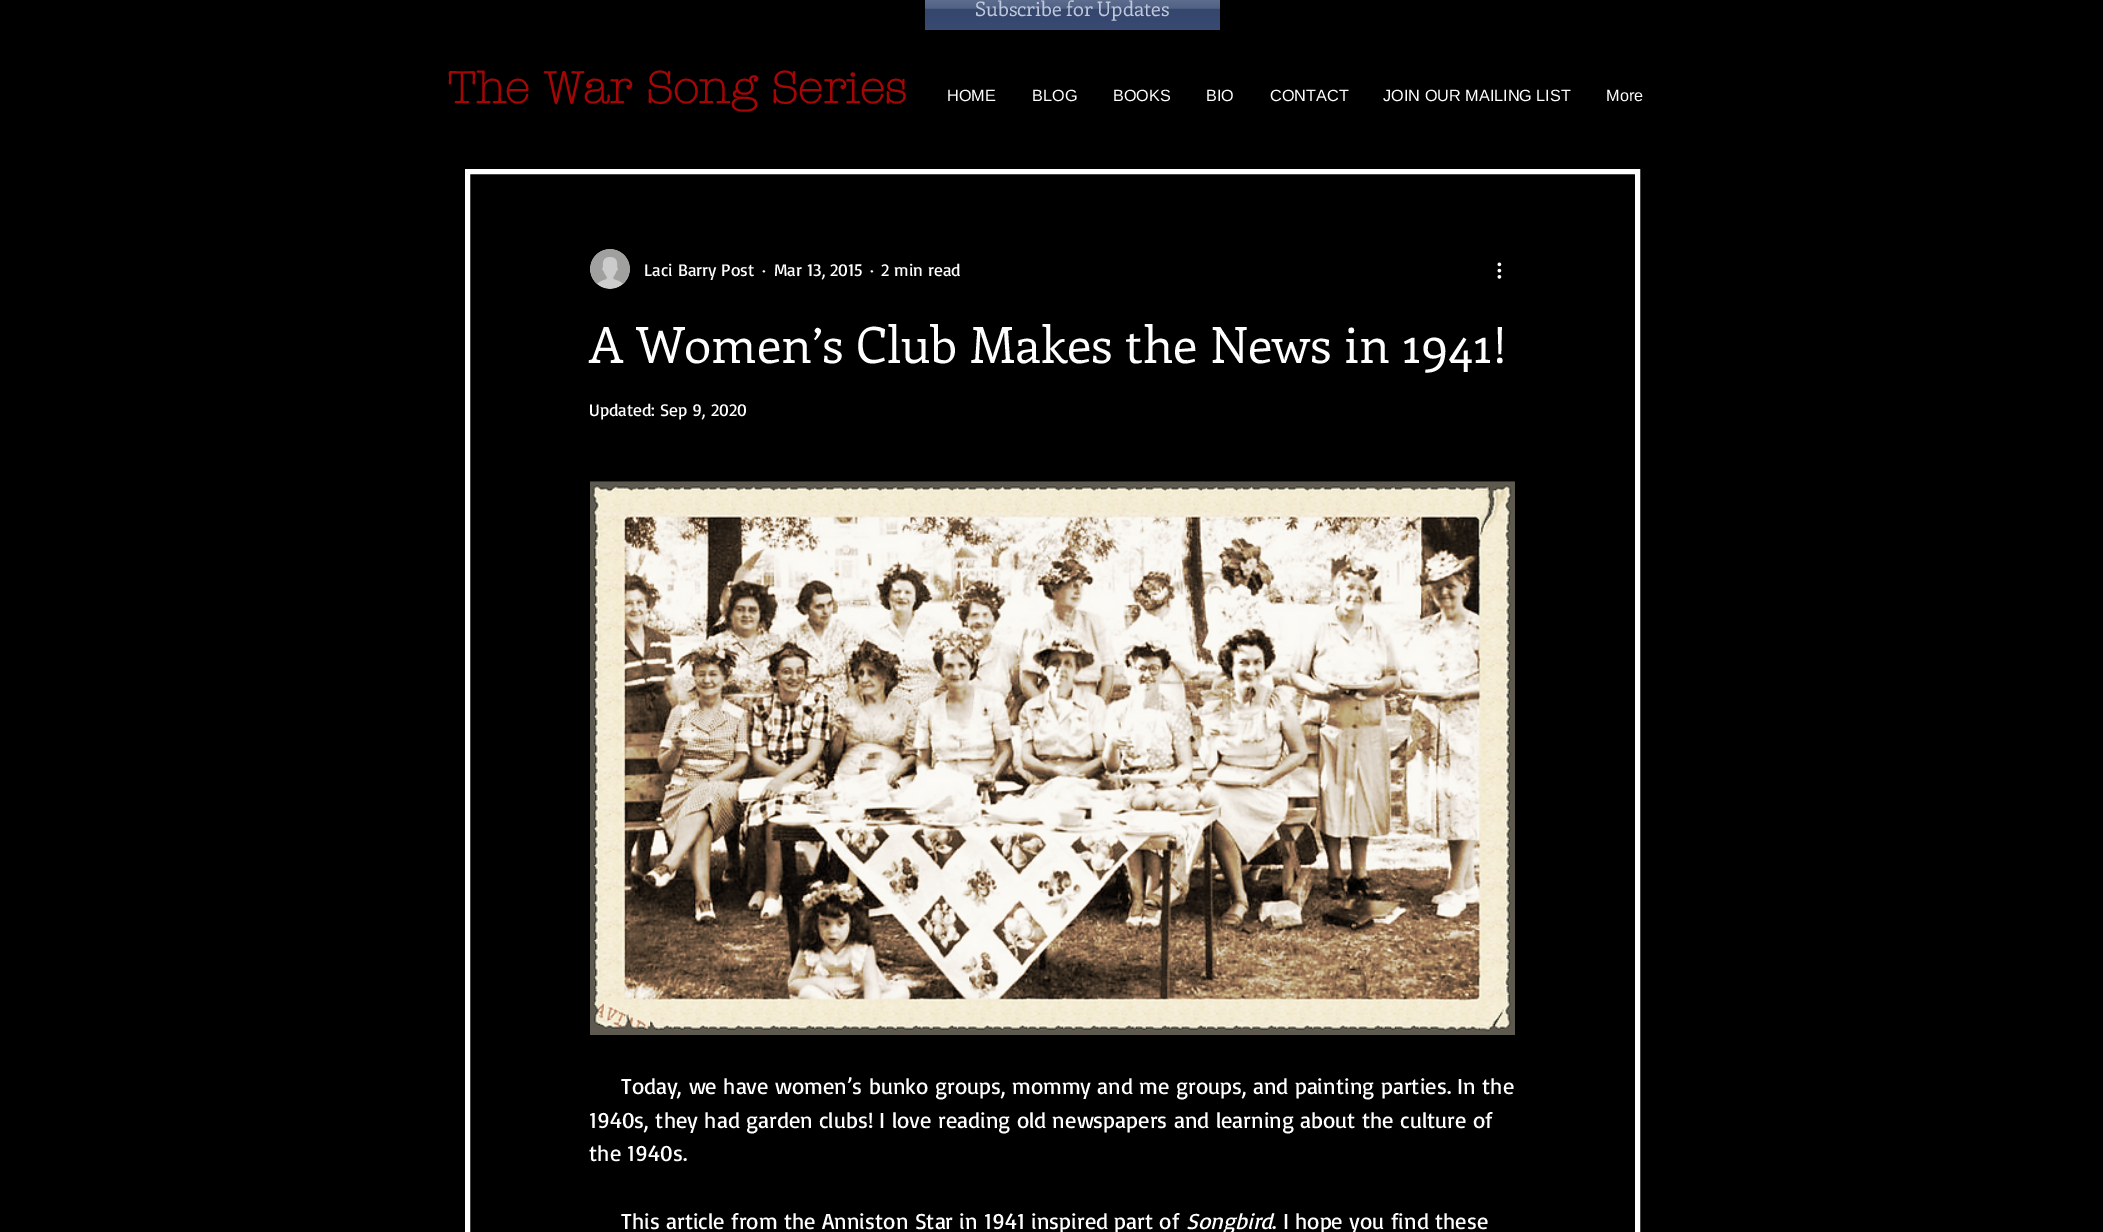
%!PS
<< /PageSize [2103 1232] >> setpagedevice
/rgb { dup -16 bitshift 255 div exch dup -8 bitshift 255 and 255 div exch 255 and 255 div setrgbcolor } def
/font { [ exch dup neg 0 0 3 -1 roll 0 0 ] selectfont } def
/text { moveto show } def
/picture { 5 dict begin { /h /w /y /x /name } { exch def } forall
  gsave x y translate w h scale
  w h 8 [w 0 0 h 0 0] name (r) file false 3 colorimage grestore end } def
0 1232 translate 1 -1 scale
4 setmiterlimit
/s1 { /Enriqueta-Regular 20 font 16#C0C9DC rgb } def
/s2 { /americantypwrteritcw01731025-Bold 45 font 16#A40606 rgb } def
/s3 { /LiberationSans-Regular 16.25 font 16#FFFFFF rgb } def
/s4 { /Basic-Regular 17.5 font 16#FFFFFF rgb } def
/s5 { /Enriqueta-Regular 50 font 16#FFFFFF rgb } def
/s6 { /Basic-Regular 22.5 font 16#FFFFFF rgb } def
/s7 { /Basic-Italic 22.5 font 16#FFFFFF rgb } def
16#000000 rgb
0 0 2103 1232 rectfill
16#394C75 rgb
925 0 295 30 rectfill
(pic1.raw) 925 0 295 29 picture
s1
(Subscribe for Updates) 975 16 text
s2
(The War Song Series) 447 103 text
s3
(HOME) 947 101 text
(BLOG) 1032 101 text
(BOOKS) 1113 101 text
(BIO) 1206 101 text
(CONTACT) 1270 101 text
(JOIN OUR MAILING LIST) 1383 101 text
(More) 1606 101 text
5 setlinewidth
467.5 171.5 1170 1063 rectstroke
(pic2.raw) 590 249 40 40 picture
s4
(Laci Barry Post) 644 276 text
(·) 762 276 text
(Mar 13, 2015) 774 276 text
(·) 870 276 text
(2 min read) 881 276 text
(pic3.raw) 1497 262 5 17 picture
s5
(A Women’s Club Makes the News in 1941!) 589 363 text
s4
(Updated: Sep 9, 2020) 589 416 text
(pic4.raw) 590 481 925 554 picture
s6
(Today, we have women’s bunko groups, mommy and me groups, and painting parties. In the) 621 1094 text
(1940s, they had garden clubs! I love reading old newspapers and learning about the culture of) 589 1128 text
(the 1940s.) 589 1161 text
(This article from the Anniston Star in 1941 inspired part of) 621 1229 text
s7
(Songbird) 1186 1229 text
s6
(. I hope you find these) 1272 1229 text
showpage
